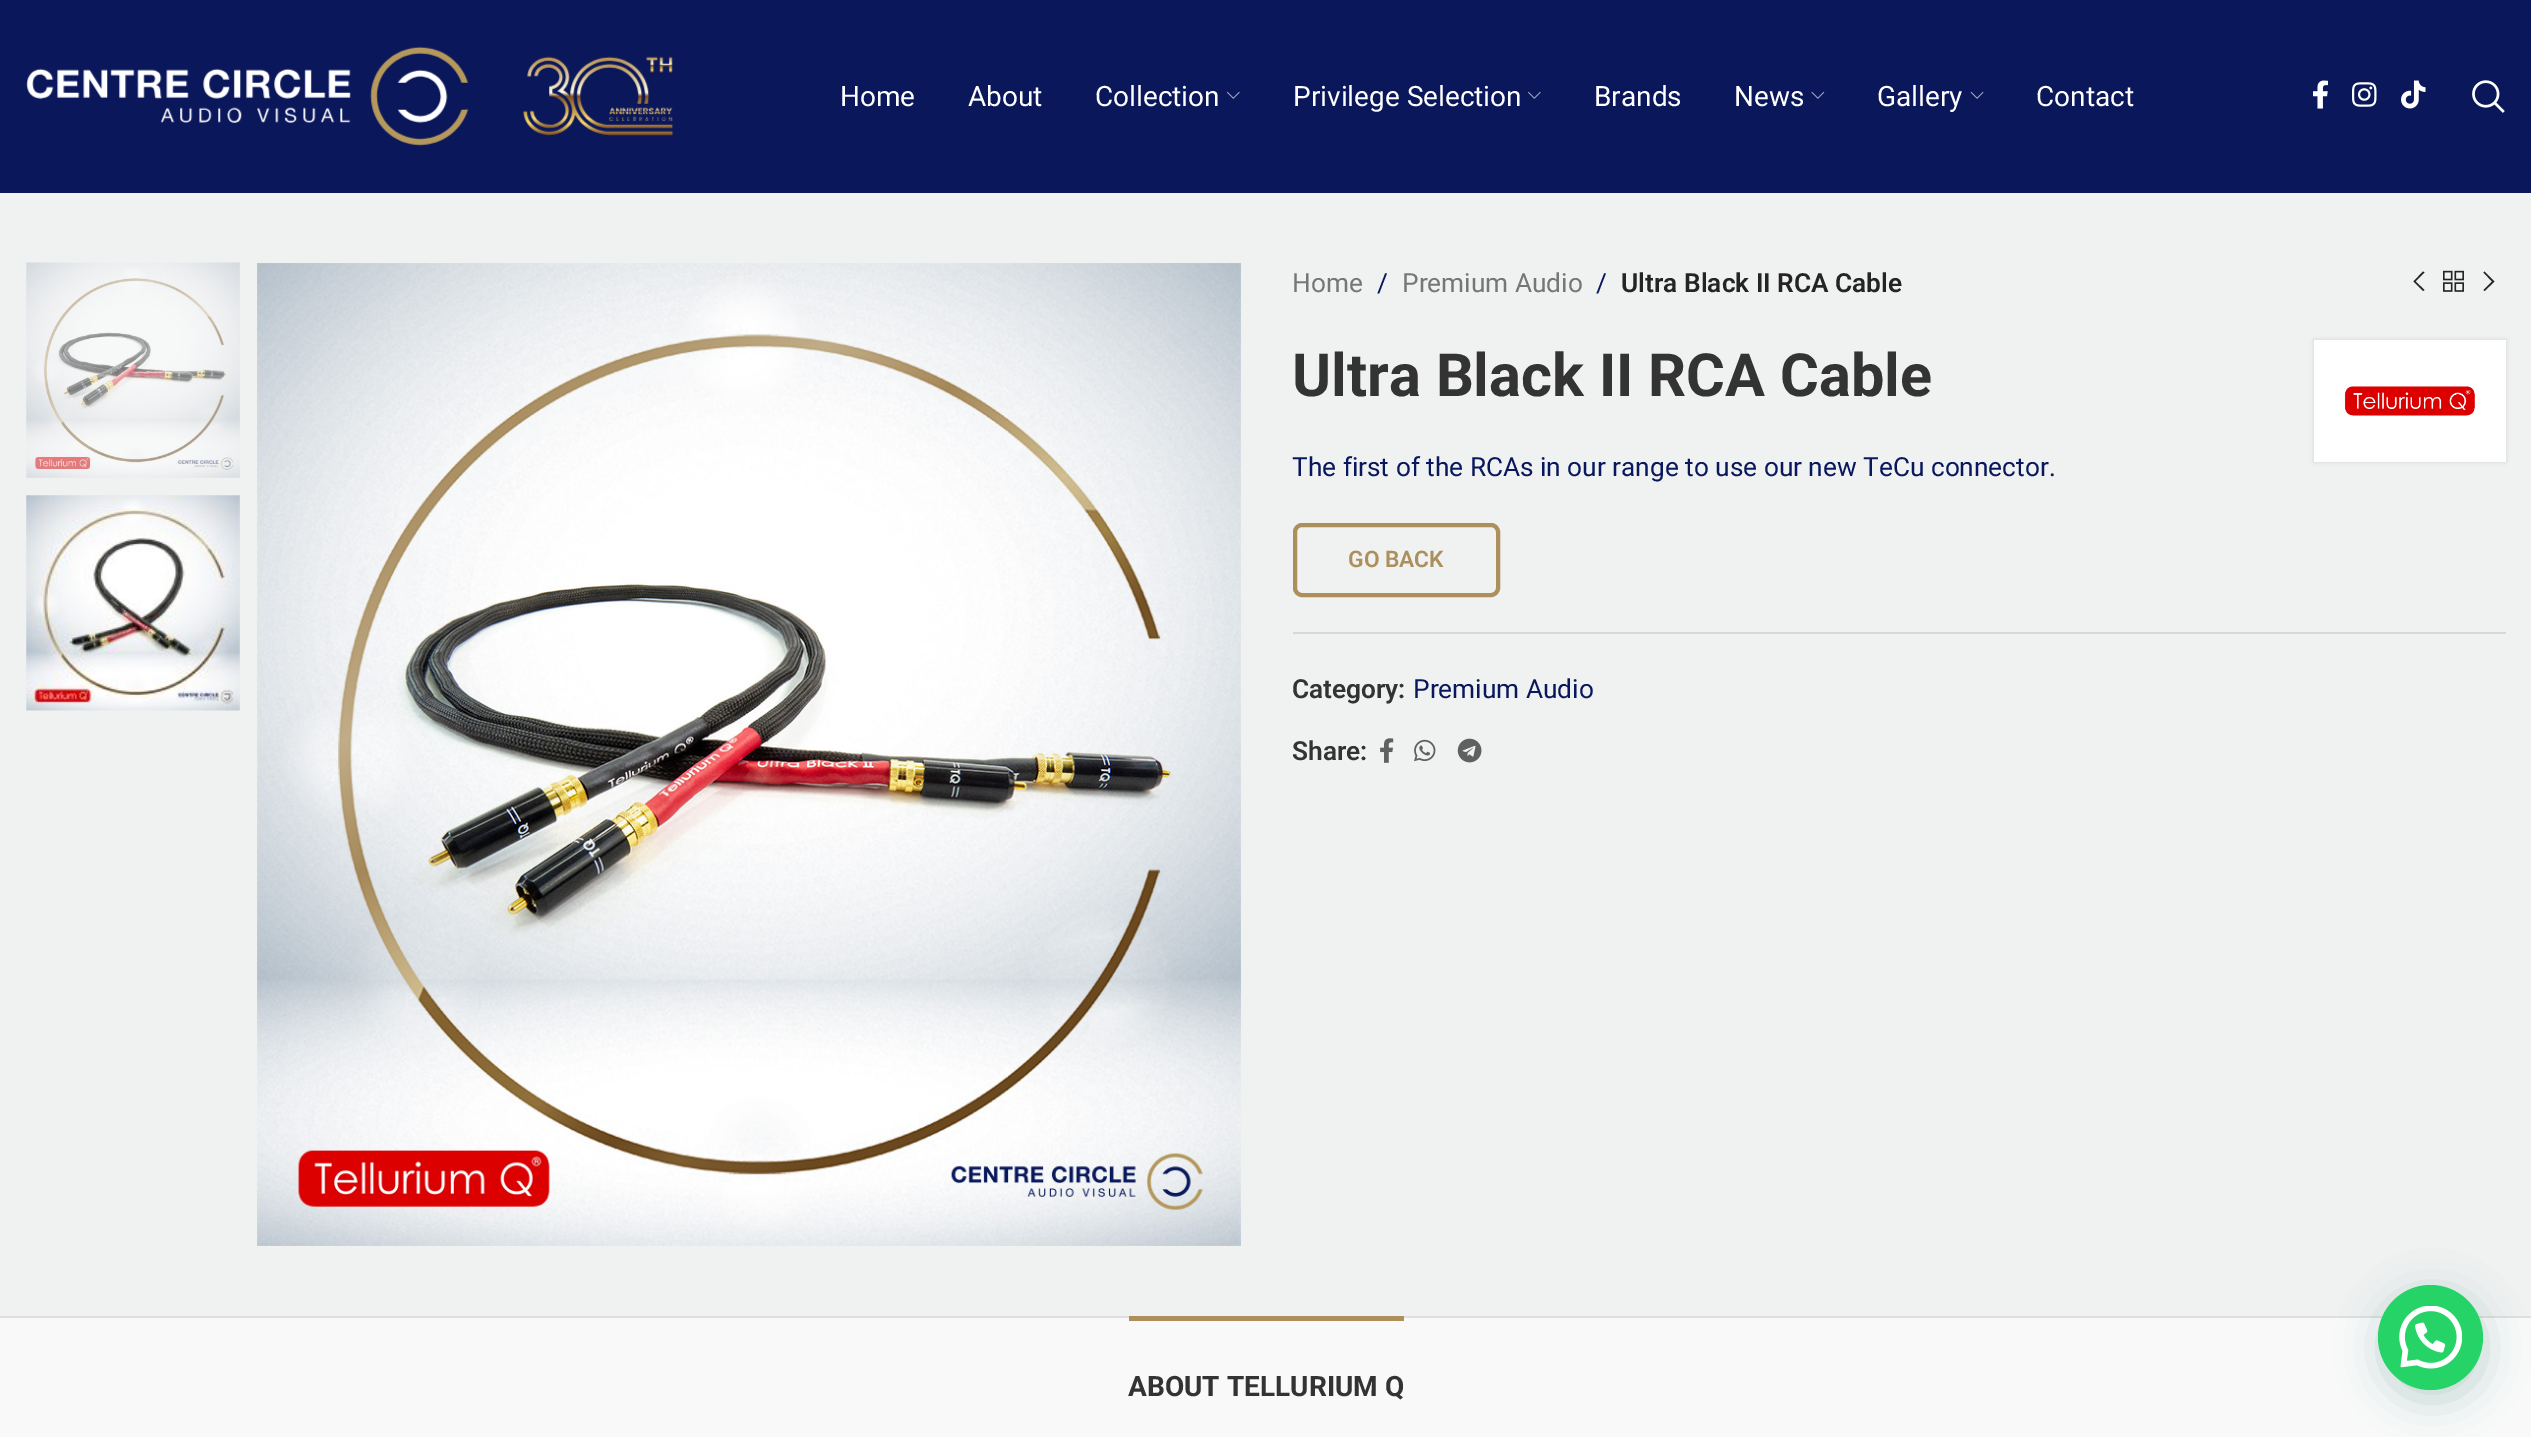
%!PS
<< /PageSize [2531 1437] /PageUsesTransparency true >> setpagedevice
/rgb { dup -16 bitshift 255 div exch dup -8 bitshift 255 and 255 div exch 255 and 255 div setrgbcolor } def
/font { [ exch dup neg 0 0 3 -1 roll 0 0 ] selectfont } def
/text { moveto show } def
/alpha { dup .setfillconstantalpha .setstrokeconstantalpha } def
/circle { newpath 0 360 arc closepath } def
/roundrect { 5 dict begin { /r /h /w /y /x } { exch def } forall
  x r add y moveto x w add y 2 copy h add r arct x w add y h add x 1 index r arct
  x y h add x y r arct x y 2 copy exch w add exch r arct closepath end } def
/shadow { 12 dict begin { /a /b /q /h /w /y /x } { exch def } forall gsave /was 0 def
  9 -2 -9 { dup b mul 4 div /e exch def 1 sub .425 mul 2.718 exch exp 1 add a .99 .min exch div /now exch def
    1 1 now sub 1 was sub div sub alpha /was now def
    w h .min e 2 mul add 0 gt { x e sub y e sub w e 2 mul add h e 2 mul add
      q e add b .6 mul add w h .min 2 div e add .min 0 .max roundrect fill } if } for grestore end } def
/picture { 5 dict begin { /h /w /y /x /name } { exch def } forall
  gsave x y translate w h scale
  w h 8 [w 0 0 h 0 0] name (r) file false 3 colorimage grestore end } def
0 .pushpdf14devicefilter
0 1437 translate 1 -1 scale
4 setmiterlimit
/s1 { /Roboto-Regular 28 font 16#FFFFFF rgb } def
/s2 { /Roboto-Regular 26.25 font 16#767676 rgb } def
/s3 { /Roboto-Regular 26.25 font 16#09185C rgb } def
/s4 { /Roboto-SemiBold 26.25 font 16#242424 rgb } def
/s5 { /Roboto-Bold 59.5 font 16#333333 rgb } def
/s6 { /Roboto-SemiBold 22.75 font 16#AC8F5A rgb } def
/s7 { /Roboto-SemiBold 26.25 font 16#333333 rgb } def
/s8 { /Roboto-Bold 28 font 16#333333 rgb } def
16#F0F1F1 rgb
0 0 2531 1437 rectfill
16#0A175B rgb
0 0 2531 193 rectfill
(pic1.raw) 26 46 648 100 picture
s1
(Home) 840 106 text
(About) 968 106 text
(Collection) 1095 106 text
(pic2.raw) 1226 91 14 8 picture
(Privilege Selection) 1293 106 text
(pic2.raw) 1527 91 14 8 picture
(Brands) 1594 106 text
(News) 1734 106 text
(pic3.raw) 1811 91 14 8 picture
(Gallery) 1877 106 text
(pic4.raw) 1970 91 14 8 picture
(Contact) 2036 106 text
(pic5.raw) 2313 80 15 29 picture
(pic6.raw) 2352 82 25 25 picture
(pic7.raw) 2401 80 25 29 picture
(pic8.raw) 2472 80 33 33 picture
(pic9.raw) 26 262 214 216 picture
(pic10.raw) 26 495 214 216 picture
(pic11.raw) 257 263 984 983 picture
s2
(Home) 1292 292 text
s3
(/) 1377 292 text
s2
(Premium Audio) 1402 292 text
s3
(/) 1596 292 text
s4
(Ultra Black II RCA Cable) 1621 292 text
2424.5 272.5 moveto 2423 271.5 lineto 2413.5 281.5 lineto 2423 291 lineto 2424.5 290 lineto 2415.5 281.5 lineto closepath fill
(pic12.raw) 2443 270 21 22 picture
2483.5 272.5 moveto 2492 281.5 lineto 2483.5 290 lineto 2484.5 291 lineto 2494.5 281.5 lineto 2484.5 271.5 lineto closepath fill
s5
(Ultra Black II RCA Cable) 1292 396 text
16#000000 rgb
2314 340 192 122 0 2 0.12 shadow
16#FFFFFF rgb
2314 340 192 122 rectfill
(pic13.raw) 2344 386 131 30 picture
s3
(The first of the RCAs in our range to use our new TeCu connector.) 1292 476 text
16#AC8F5A rgb
4 setlinewidth
1295 525 203 70 7 roundrect stroke
s6
(GO BACK) 1348 567 text
16#D7D7D7 rgb
1293 632 1213 2 rectfill
s7
(Category:) 1292 698 text
s3
(Premium Audio) 1413 698 text
s7
(Share:) 1292 760 text
(pic14.raw) 1380 738 14 25 picture
(pic15.raw) 1414 739 22 23 picture
(pic16.raw) 1457 738 25 25 picture
16#F9F9F9 rgb
0 1318 2531 119 rectfill
16#DFDFDF rgb
0 1316 2531 2 rectfill
16#AC8F5A rgb
1129 1316 275 5 rectfill
s8
(ABOUT TELLURIUM Q) 1128 1396 text
16#075E54 rgb
2380 1295 105 105 52.5 21 0.24 shadow
16#25D366 rgb
2430.5 1337.5 52.5 circle fill
(pic17.raw) 2399 1306 63 63 picture
.poppdf14devicefilter showpage
